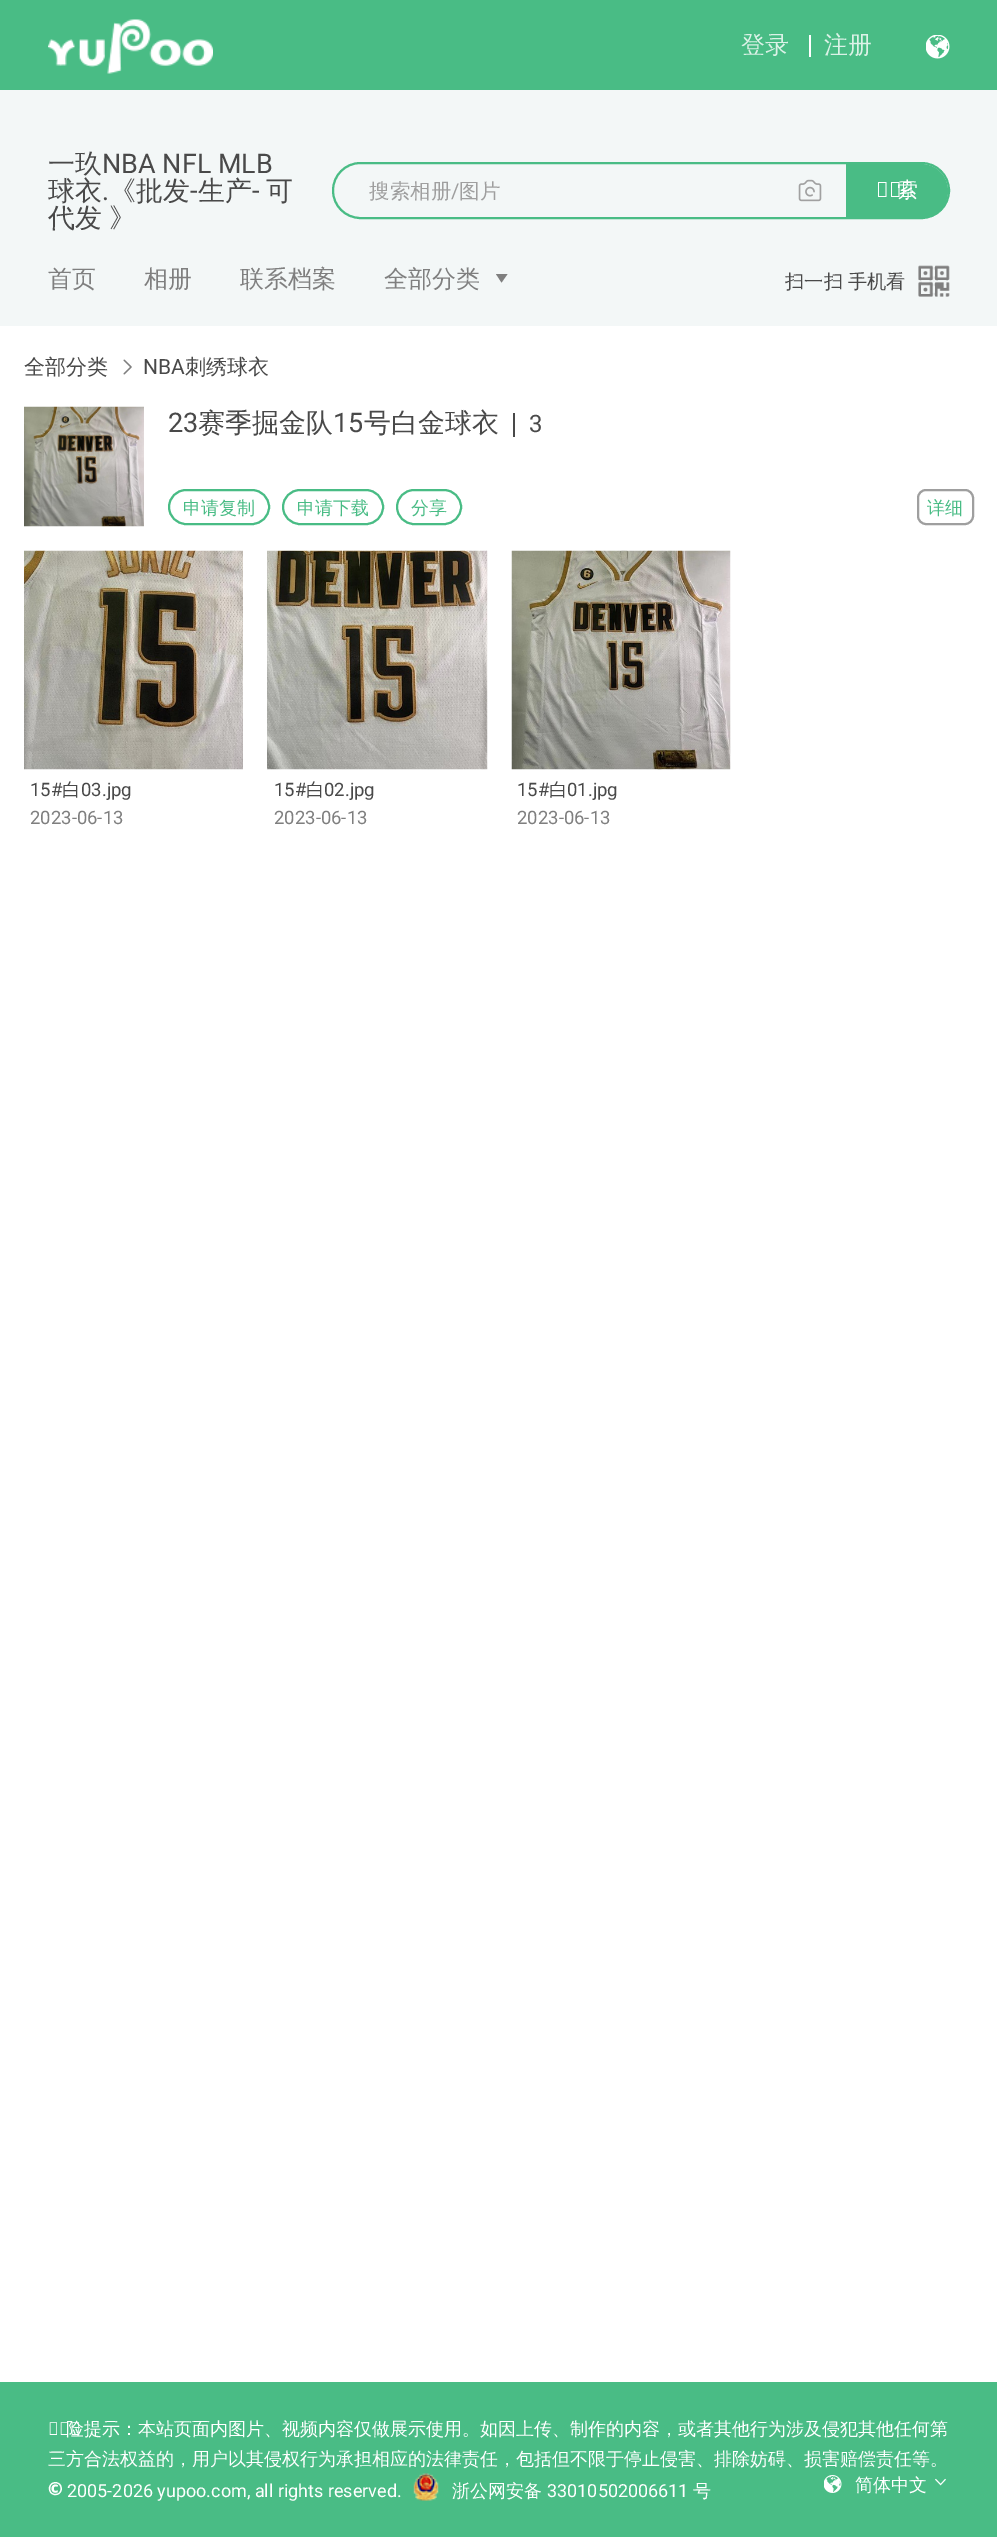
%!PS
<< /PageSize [997 2537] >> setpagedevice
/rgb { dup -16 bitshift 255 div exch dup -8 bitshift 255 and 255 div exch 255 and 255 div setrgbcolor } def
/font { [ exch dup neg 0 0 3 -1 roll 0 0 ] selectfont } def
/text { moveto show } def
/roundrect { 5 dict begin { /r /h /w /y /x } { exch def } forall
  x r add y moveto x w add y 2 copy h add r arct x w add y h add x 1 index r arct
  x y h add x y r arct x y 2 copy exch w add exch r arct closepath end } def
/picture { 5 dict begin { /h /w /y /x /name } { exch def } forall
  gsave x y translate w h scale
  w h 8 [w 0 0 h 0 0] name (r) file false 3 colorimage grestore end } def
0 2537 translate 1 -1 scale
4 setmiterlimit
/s1 { /WenQuanYiZenHei-Medium 24 font 16#DBF2E7 rgb } def
/s2 { /WenQuanYiZenHei-Medium 27 font 16#494949 rgb } def
/s3 { /Roboto-Regular 27 font 16#494949 rgb } def
/s4 { /WenQuanYiZenHei-Medium 20.5 font 16#9F9F9F rgb } def
/s5 { /Roboto-Regular 20.5 font 16#9F9F9F rgb } def
/s6 { /NotoSans-Regular 21 font 16#FFFFFF rgb } def
/s7 { /WenQuanYiZenHei-Medium 21 font 16#FFFFFF rgb } def
/s8 { /WenQuanYiZenHei-Medium 24 font 16#7F7F7F rgb } def
/s9 { /WenQuanYiZenHei-Medium 21 font 16#494949 rgb } def
/s10 { /Roboto-Regular 21 font 16#494949 rgb } def
/s11 { /Roboto-Regular 24 font 16#494949 rgb } def
/s12 { /WenQuanYiZenHei-Medium 18 font 16#49BC85 rgb } def
/s13 { /Roboto-Regular 18.5 font 16#494949 rgb } def
/s14 { /WenQuanYiZenHei-Medium 18.5 font 16#494949 rgb } def
/s15 { /Roboto-Regular 18.5 font 16#7F7F7F rgb } def
/s16 { /NotoSans-Regular 18 font 16#FFFFFF rgb } def
/s17 { /WenQuanYiZenHei-Medium 18 font 16#FFFFFF rgb } def
/s18 { /NotoSans-Black 18 font 16#FFFFFF rgb } def
/s19 { /Roboto-Regular 18 font 16#FFFFFF rgb } def
16#FFFFFF rgb
0 0 997 2537 rectfill
16#49BC85 rgb
0 0 997 90 rectfill
(pic1.raw) 48 19 165 55 picture
s1
(登录) 741 53 text
16#FFFFFF rgb
809 35 2 22 rectfill
s1
(注册) 824 53 text
(pic2.raw) 926 35 24 24 picture
16#F3F7F7 rgb
0 90 997 236 rectfill
s2
(一玖) 48 173 text
s3
(NBA NFL MLB) 102 173 text
s2
(球衣) 48 200 text
(《批发) 109 200 text
s3
(-) 190 200 text
s2
(生产) 198 200 text
s3
(-) 252 200 text
s2
(可) 266 200 text
s3
(.) 102 200 text
/WenQuanYiZenHei-Medium 27 font
48 227 moveto -1 0 32 (代发 》) widthshow
16#49BC85 rgb
2 setlinewidth
333 163 616 55 27.5 roundrect stroke
s4
(搜索相册) 369 198 text
s5
(/) 451 198 text
s4
(图片) 459 198 text
(pic3.raw) 798 179 24 23 picture
16#49BC85 rgb
847 165 moveto 921 165 lineto 935.5 165 947 176.5 947 191 curveto 947 205.5 935.5 217 921 217 curveto 847 217 lineto closepath gsave fill grestore
stroke
s6
(搜) 876 197 text
s7
(索) 897 197 text
s8
(首页) 48 287 text
(相册) 144 287 text
(联系档案) 240 287 text
(全部分类) 384 287 text
501.5 282.5 moveto 496 274 lineto 507.5 274 lineto closepath fill
/WenQuanYiZenHei-Medium 19.25 font
16#494949 rgb
785 288 moveto -1 0 32 (扫一扫 手机看) widthshow
(pic4.raw) 918 265 32 32 picture
s9
(全部分类) 24 374 text
(pic5.raw) 123 359 9 16 picture
s10
(NBA) 143 374 text
s9
(刺绣球衣) 185 374 text
(pic6.raw) 24 406 120 121 picture
s3
(23) 168 432 text
s2
(赛季掘金队) 198 432 text
s3
(15) 333 432 text
s2
(号白金球衣) 364 432 text
513 413 2 24 rectfill
s11
(3) 529 432 text
16#49BC85 rgb
169 490 100 34 17 roundrect stroke
s12
(申请复制) 183 514 text
283 490 100 34 17 roundrect stroke
(申请下载) 297 514 text
397 490 64 34 17 roundrect stroke
(分享) 411 514 text
16#9F9F9F rgb
918 490 55 34 8 roundrect stroke
s12
(详细) 927 514 text
(pic7.raw) 24 550 219 220 picture
s13
(15#) 30 796 text
s14
(白) 62 796 text
s13
(03.jpg) 81 796 text
s15
(2023-06-13) 30 824 text
(pic8.raw) 267 550 221 220 picture
s13
(15#) 274 796 text
s14
(白) 306 796 text
s13
(02.jpg) 324 796 text
s15
(2023-06-13) 274 824 text
(pic9.raw) 511 550 220 220 picture
s13
(15#) 517 796 text
s14
(白) 549 796 text
s13
(01.jpg) 567 796 text
s15
(2023-06-13) 517 824 text
16#49BC85 rgb
0 2382 997 155 rectfill
s16
(风) 48 2435 text
s17
(险提示：本站页面内图片、视频内容仅做展示使用。如因上传、制作的内容，或者其他行为涉及侵犯其他任何第) 66 2435 text
(三方合法权益的，用户以其侵权行为承担相应的法律责任，包括但不限于停止侵害、排除妨碍、损害赔偿责任等。) 48 2465 text
s18
(©) 48 2495 text
s19
(2005-2026 yupoo.com, all rights reserved.) 67 2497 text
(pic10.raw) 413 2473 26 28 picture
s17
(浙公网安备) 452 2497 text
s19
(33010502006611) 547 2497 text
s17
(号) 693 2497 text
(pic11.raw) 824 2475 18 18 picture
(简体中文) 855 2491 text
(pic12.raw) 935 2478 11 8 picture
showpage
